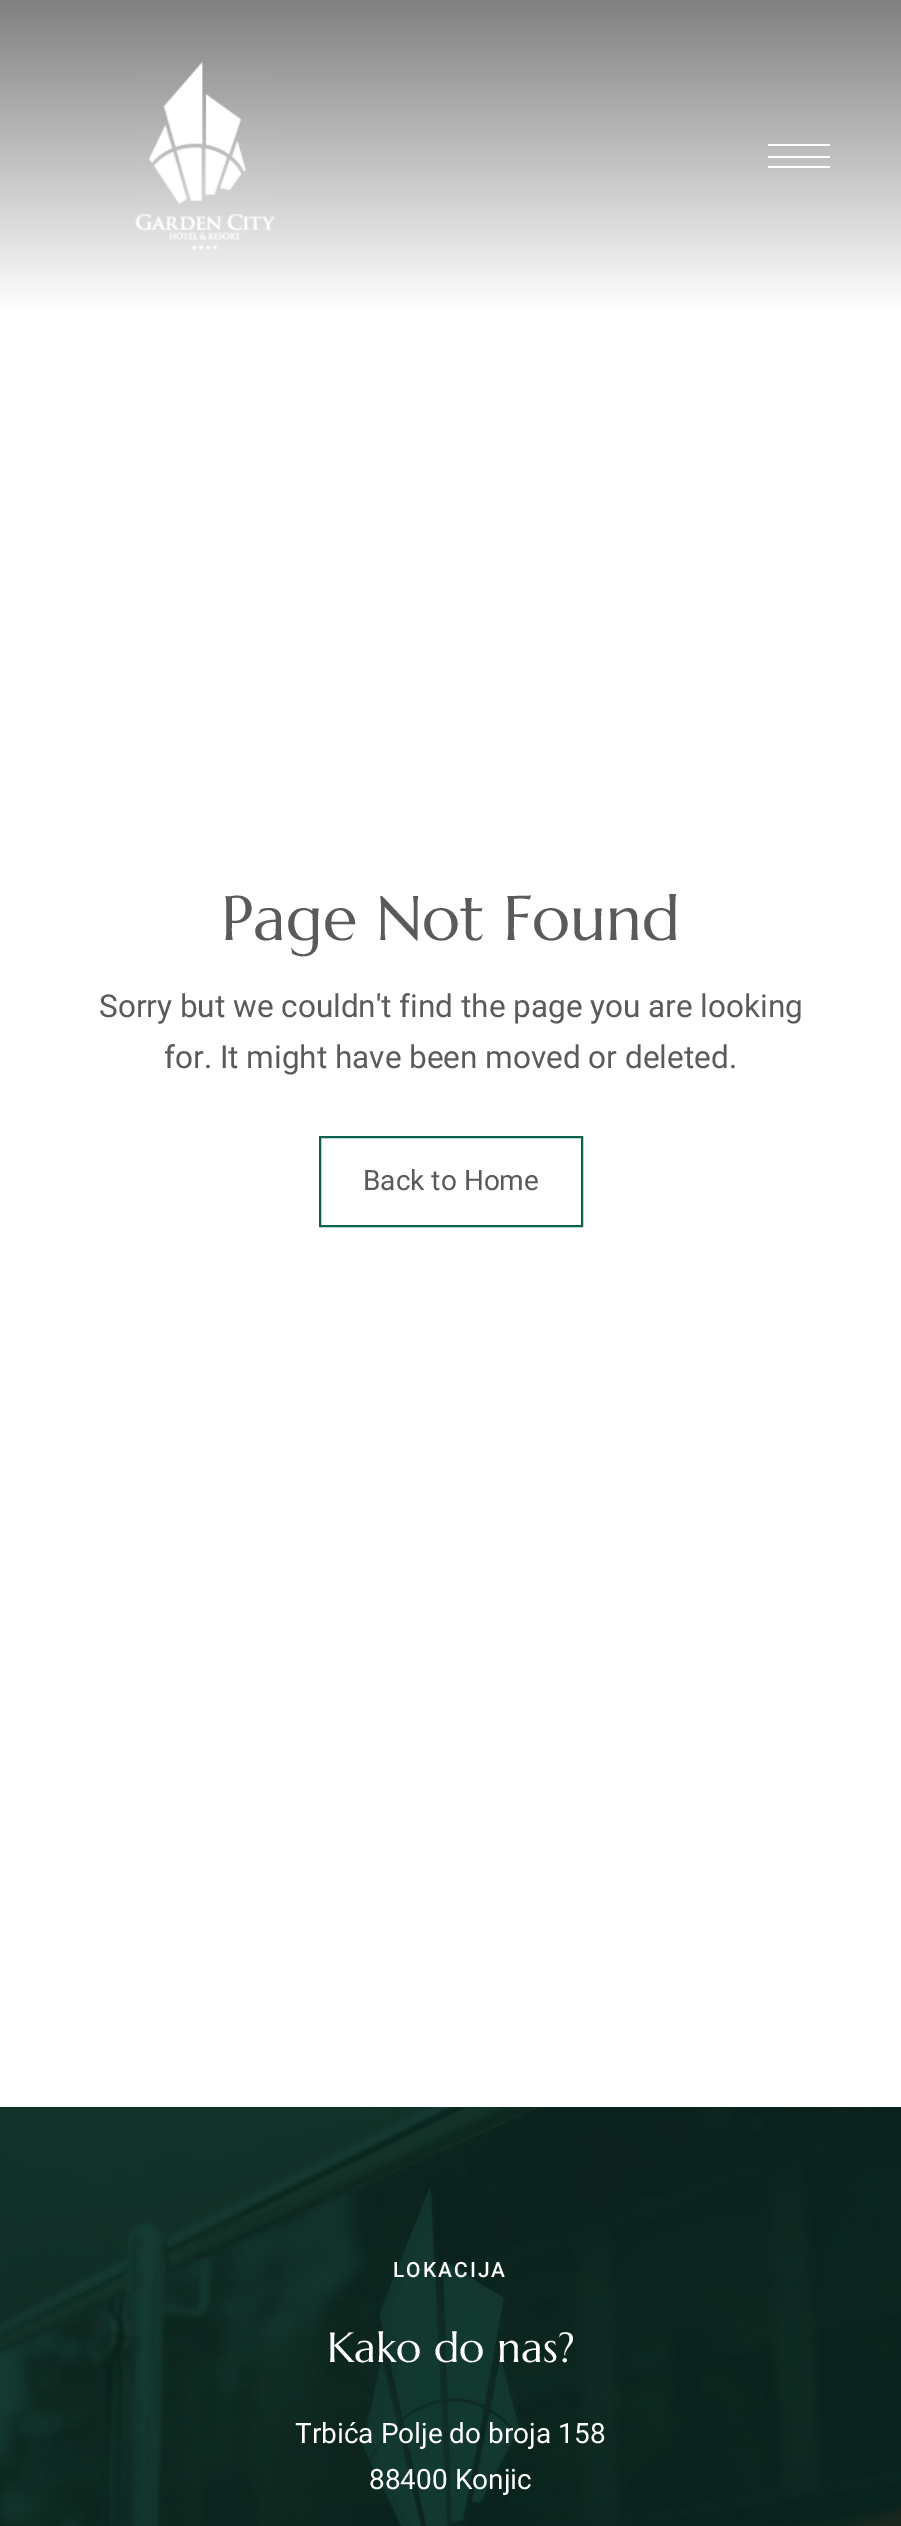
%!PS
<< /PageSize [901 2526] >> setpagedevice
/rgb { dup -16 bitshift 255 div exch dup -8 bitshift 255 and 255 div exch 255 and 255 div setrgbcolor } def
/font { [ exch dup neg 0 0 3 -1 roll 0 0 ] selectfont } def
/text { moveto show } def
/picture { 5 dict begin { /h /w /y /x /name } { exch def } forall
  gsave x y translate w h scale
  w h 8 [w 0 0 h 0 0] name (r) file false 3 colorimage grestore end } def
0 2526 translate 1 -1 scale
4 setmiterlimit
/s1 { /Marcellus-Regular 63 font 16#5B5A5A rgb } def
/s2 { /Roboto-Regular 31.5 font 16#5B5A5A rgb } def
/s3 { /Roboto-Regular 28 font 16#5B5A5A rgb } def
/s4 { /Marcellus-Regular 42 font 16#FFFFFF rgb } def
/s5 { /Roboto-Regular 28 font 16#FFFFFF rgb } def
16#FFFFFF rgb
0 0 901 2526 rectfill
gsave 0 0 moveto 901 0 lineto 901 306 lineto 0 306 lineto closepath clip newpath
<< /ShadingType 2 /ColorSpace /DeviceRGB /Coords [451 0 451 312] /Extend [true true] /Function << /FunctionType 2 /Domain [0 1] /C0 [0.502 0.502 0.502] /C1 [1 1 1] /N 1 >> >> shfill grestore
(pic1.raw) 135 62 140 188 picture
768 144 62 2 rectfill
768 166 62 2 rectfill
768 156 62 2 rectfill
s1
(Page Not Found) 221 940 text
s2
(Sorry but we couldn't find the page you are looking) 99 1017 text
(for. It might have been moved or deleted.) 164 1068 text
16#0D614C rgb
2 setlinewidth
320 1137 262 89 rectstroke
s3
(Back to Home) 363 1190 text
(pic2.raw) 0 2107 901 419 picture
/Roboto-Medium 21 font
16#FFFFFF rgb
393 2277 moveto 2 0 (LOKACIJA) ashow
s4
(Kako do nas?) 327 2362 text
s5
(Trbića Polje do broja 158) 295 2443 text
(88400 Konjic) 369 2489 text
showpage
